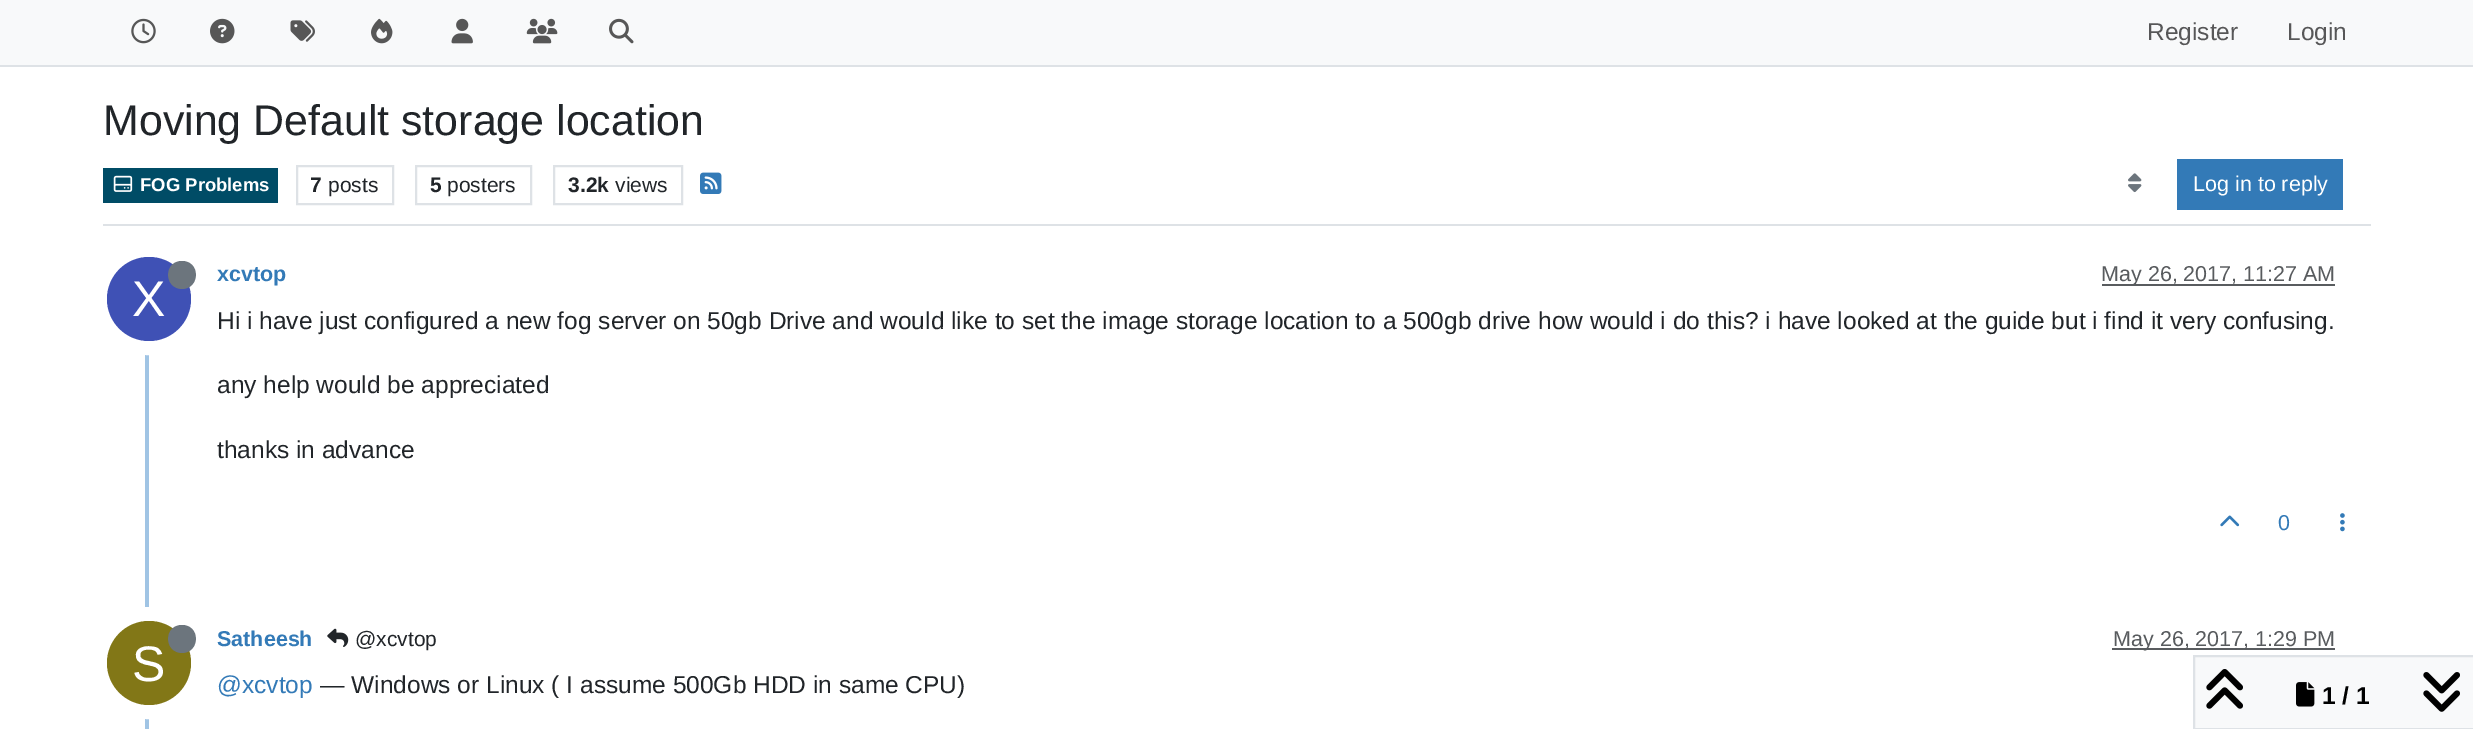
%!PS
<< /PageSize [2473 729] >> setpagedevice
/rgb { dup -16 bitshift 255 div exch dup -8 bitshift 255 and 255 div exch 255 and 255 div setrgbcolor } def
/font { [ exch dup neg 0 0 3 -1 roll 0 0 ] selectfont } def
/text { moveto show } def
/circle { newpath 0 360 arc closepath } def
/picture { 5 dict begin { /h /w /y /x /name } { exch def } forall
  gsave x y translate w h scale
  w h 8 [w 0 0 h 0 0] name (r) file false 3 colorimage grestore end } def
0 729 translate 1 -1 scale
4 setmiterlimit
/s1 { /LiberationSans-Regular 24.5 font 16#575758 rgb } def
/s2 { /LiberationSans-Regular 42.9 font 16#212529 rgb } def
/s3 { /LiberationSans-Bold 18.5 font 16#FFFFFF rgb } def
/s4 { /LiberationSans-Bold 21 font 16#212529 rgb } def
/s5 { /LiberationSans-Regular 21 font 16#212529 rgb } def
/s6 { /LiberationSans-Regular 21.5 font 16#FFFFFF rgb } def
/s7 { /LiberationSans-Bold 21.5 font 16#337AB7 rgb } def
/s8 { /LiberationSans-Regular 21.5 font 16#585B5E rgb } def
/s9 { /LiberationSans-Regular 50 font 16#FFFFFF rgb } def
/s10 { /LiberationSans-Regular 24.5 font 16#212529 rgb } def
/s11 { /LiberationSans-Regular 21.5 font 16#337AB7 rgb } def
/s12 { /LiberationSans-Regular 24.5 font 16#337AB7 rgb } def
/s13 { /LiberationSans-Bold 24.5 font 16#000000 rgb } def
16#FFFFFF rgb
0 0 2473 729 rectfill
16#F8F9FA rgb
0 0 2473 65 rectfill
16#DEE2E6 rgb
0 65 2473 2 rectfill
(pic1.raw) 131 18 25 26 picture
(pic2.raw) 210 18 25 26 picture
(pic3.raw) 290 20 25 22 picture
(pic4.raw) 371 18 22 26 picture
(pic5.raw) 451 18 22 26 picture
(pic6.raw) 526 18 32 26 picture
(pic7.raw) 609 18 25 26 picture
s1
(Register) 2147 40 text
(Login) 2287 40 text
16#DEE2E6 rgb
103 224 2268 2 rectfill
s2
(Moving Default storage location) 103 135 text
16#004C66 rgb
103 168 175 35 rectfill
(pic8.raw) 113 175 20 17 picture
s3
(FOG Problems) 140 191 text
16#DEE2E6 rgb
2 setlinewidth
297 166 96 38 rectstroke
s4
(7) 310 192 text
s5
(posts) 328 192 text
16#DEE2E6 rgb
416 166 115 38 rectstroke
s4
(5) 430 192 text
s5
(posters) 447 192 text
16#DEE2E6 rgb
554 166 128 38 rectstroke
s4
(3.2k) 568 192 text
s5
(views) 615 192 text
(pic9.raw) 700 172 22 22 picture
(pic10.raw) 2128 173 14 20 picture
16#337AB7 rgb
2177 159 166 51 rectfill
s6
(Log in to reply) 2193 191 text
16#A0C4E4 rgb
145 254 4 475 rectfill
s7
(xcvtop) 217 281 text
16#595C5F rgb
2102 284 233 2 rectfill
s8
(May 26, 2017, 11:27 AM) 2101 281 text
16#FFFFFF rgb
14 setlinewidth
149 299 49 circle stroke
16#3F51B5 rgb
149 299 42 circle fill
16#6C757D rgb
182 289 moveto 200.5 288.5 200.5 261 182 261 curveto 163.5 261 163.5 288.5 182 289 curveto closepath fill
s9
(X) 132 316 text
s10
(Hi i have just configured a new fog server on 50gb Drive and would like to set the image storage location to a 500gb drive how would i do this? i have looked at the guide but i find it very confusing.) 217 329 text
(any help would be appreciated) 217 393 text
(thanks in advance) 217 458 text
(pic11.raw) 2220 515 20 12 picture
s11
(0) 2278 530 text
(pic12.raw) 2340 513 5 19 picture
s7
(Satheesh) 217 646 text
(pic13.raw) 327 628 22 19 picture
s5
(@xcvtop) 355 646 text
16#595C5F rgb
2112 648 223 2 rectfill
s8
(May 26, 2017, 1:29 PM) 2113 646 text
16#FFFFFF rgb
149 663 49 circle stroke
16#827717 rgb
149 663 42 circle fill
16#6C757D rgb
182 653 moveto 200.5 652.5 200.5 625 182 625 curveto 163.5 625 163.5 652.5 182 653 curveto closepath fill
s9
(S) 132 681 text
s12
(@xcvtop) 217 693 text
s10
(— Windows or Linux \( I assume 500Gb HDD in same CPU\)) 320 693 text
16#F8F9FA rgb
2194 656 moveto 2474 656 lineto 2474 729 lineto 2194 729 lineto closepath gsave fill grestore
16#DEE2E6 rgb
2 setlinewidth
stroke
(pic14.raw) 2206 669 37 40 picture
(pic15.raw) 2296 682 19 25 picture
s13
(1 / 1) 2322 704 text
(pic16.raw) 2423 672 37 40 picture
showpage
